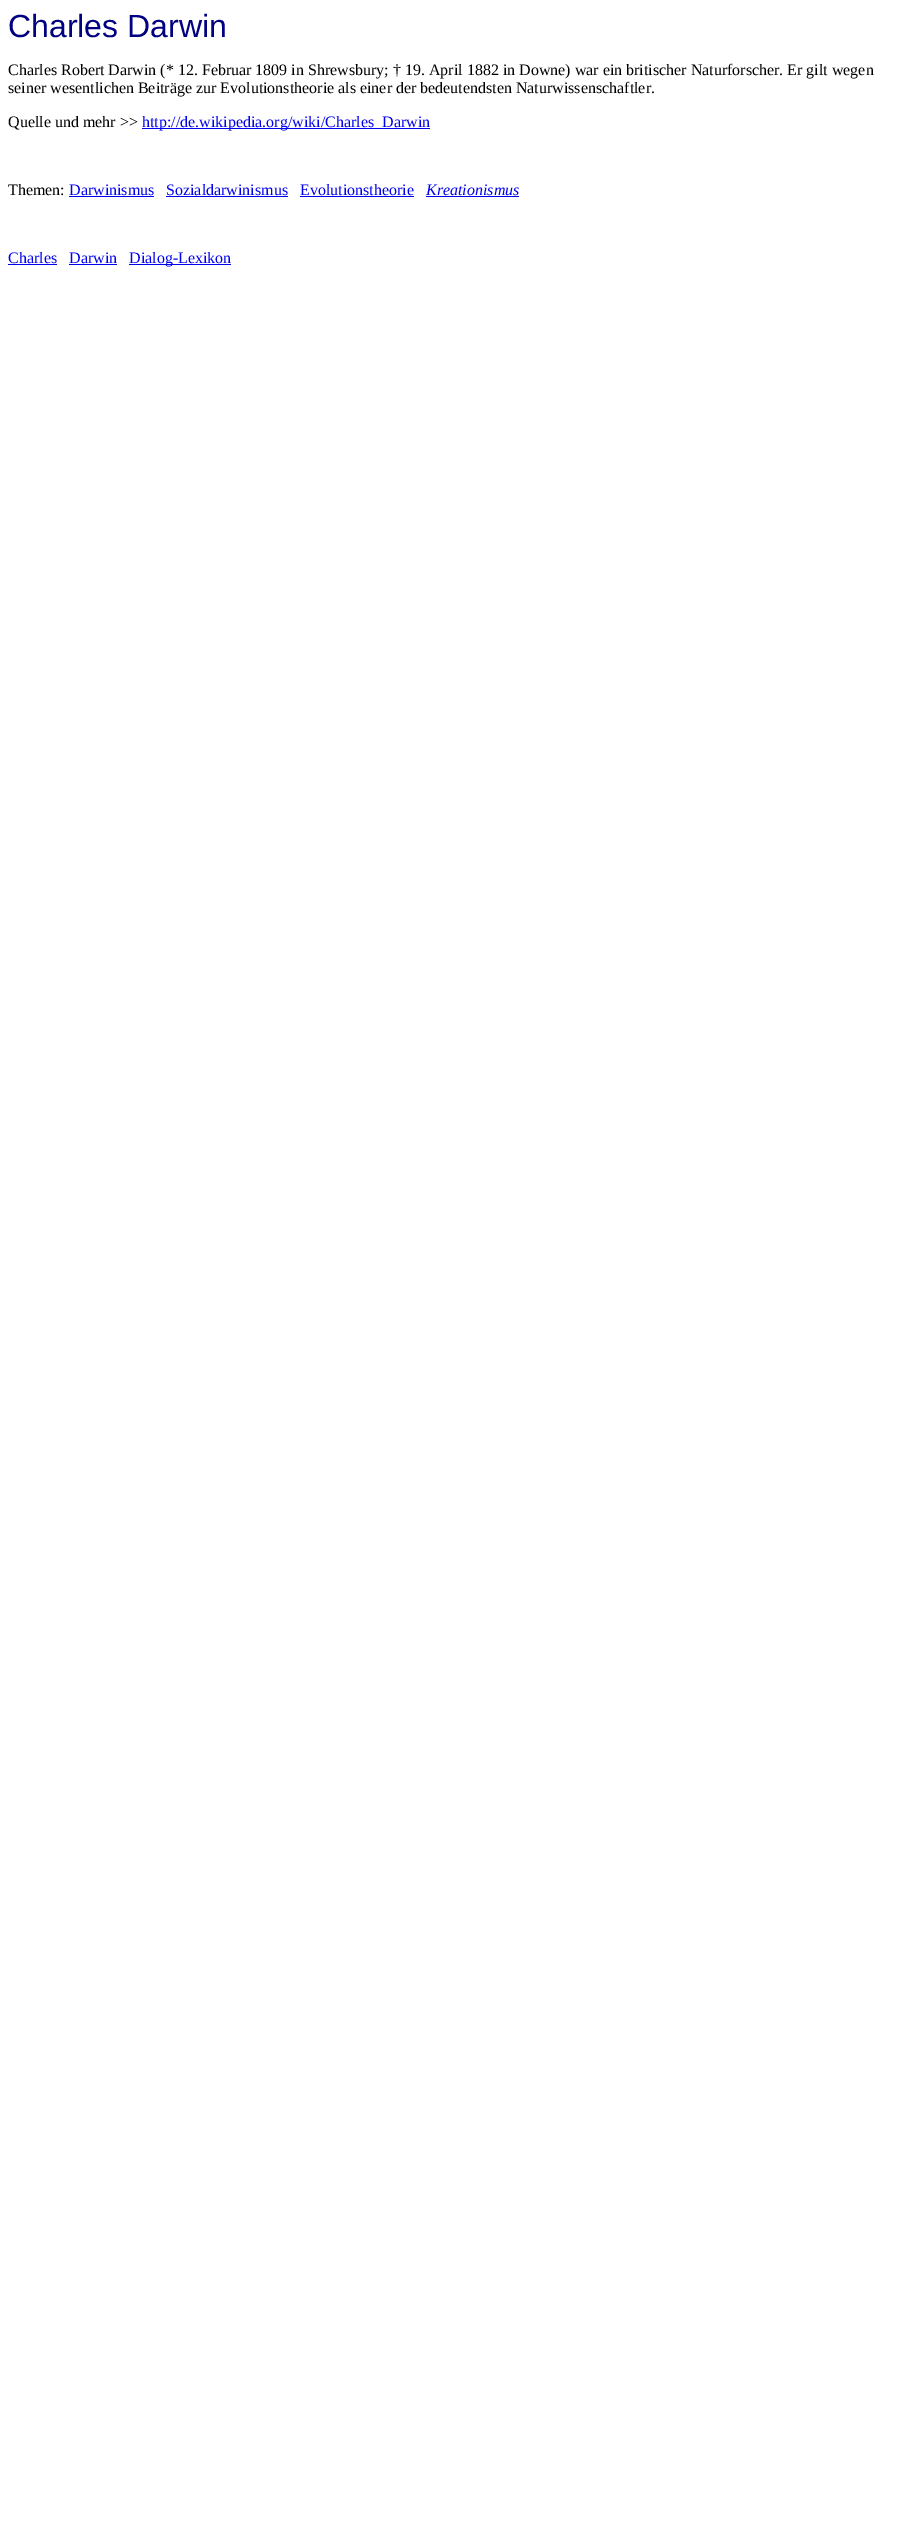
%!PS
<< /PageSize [901 2547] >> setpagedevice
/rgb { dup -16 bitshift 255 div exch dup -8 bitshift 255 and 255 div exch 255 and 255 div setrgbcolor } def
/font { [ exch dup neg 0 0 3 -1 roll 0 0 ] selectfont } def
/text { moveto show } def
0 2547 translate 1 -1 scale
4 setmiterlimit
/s1 { /LiberationSans-Regular 32 font 16#000080 rgb } def
/s2 { /LiberationSerif-Regular 16 font 16#000000 rgb } def
/s3 { /LiberationSerif-Regular 16 font 16#0000EE rgb } def
/s4 { /LiberationSerif-Italic 16 font 16#0000EE rgb } def
16#FFFFFF rgb
0 0 901 2547 rectfill
s1
(Charles Darwin) 8 37 text
s2
(Charles Robert Darwin \(* 12. Februar 1809 in Shrewsbury; † 19. April 1882 in Downe\) war ein britischer Naturforscher. Er gilt wegen) 8 75 text
(seiner wesentlichen Beiträge zur Evolutionstheorie als einer der bedeutendsten Naturwissenschaftler.) 8 93 text
(Quelle und mehr >>) 8 127 text
16#0000EE rgb
142 128 288 1 rectfill
(http://de.wikipedia.org/wiki/Charles_Darwin) 142 127 text
s2
(Themen:) 8 195 text
s3
(Darwinismus) 69 195 text
69 196 85 1 rectfill
(Sozialdarwinismus) 166 195 text
166 196 122 1 rectfill
(Evolutionstheorie) 300 195 text
300 196 114 1 rectfill
s4
(Kreationismus) 426 195 text
426 196 93 1 rectfill
s3
(Charles) 8 263 text
8 264 49 1 rectfill
(Darwin) 69 263 text
69 264 48 1 rectfill
129 264 102 1 rectfill
(Dialog-Lexikon) 129 263 text
showpage
